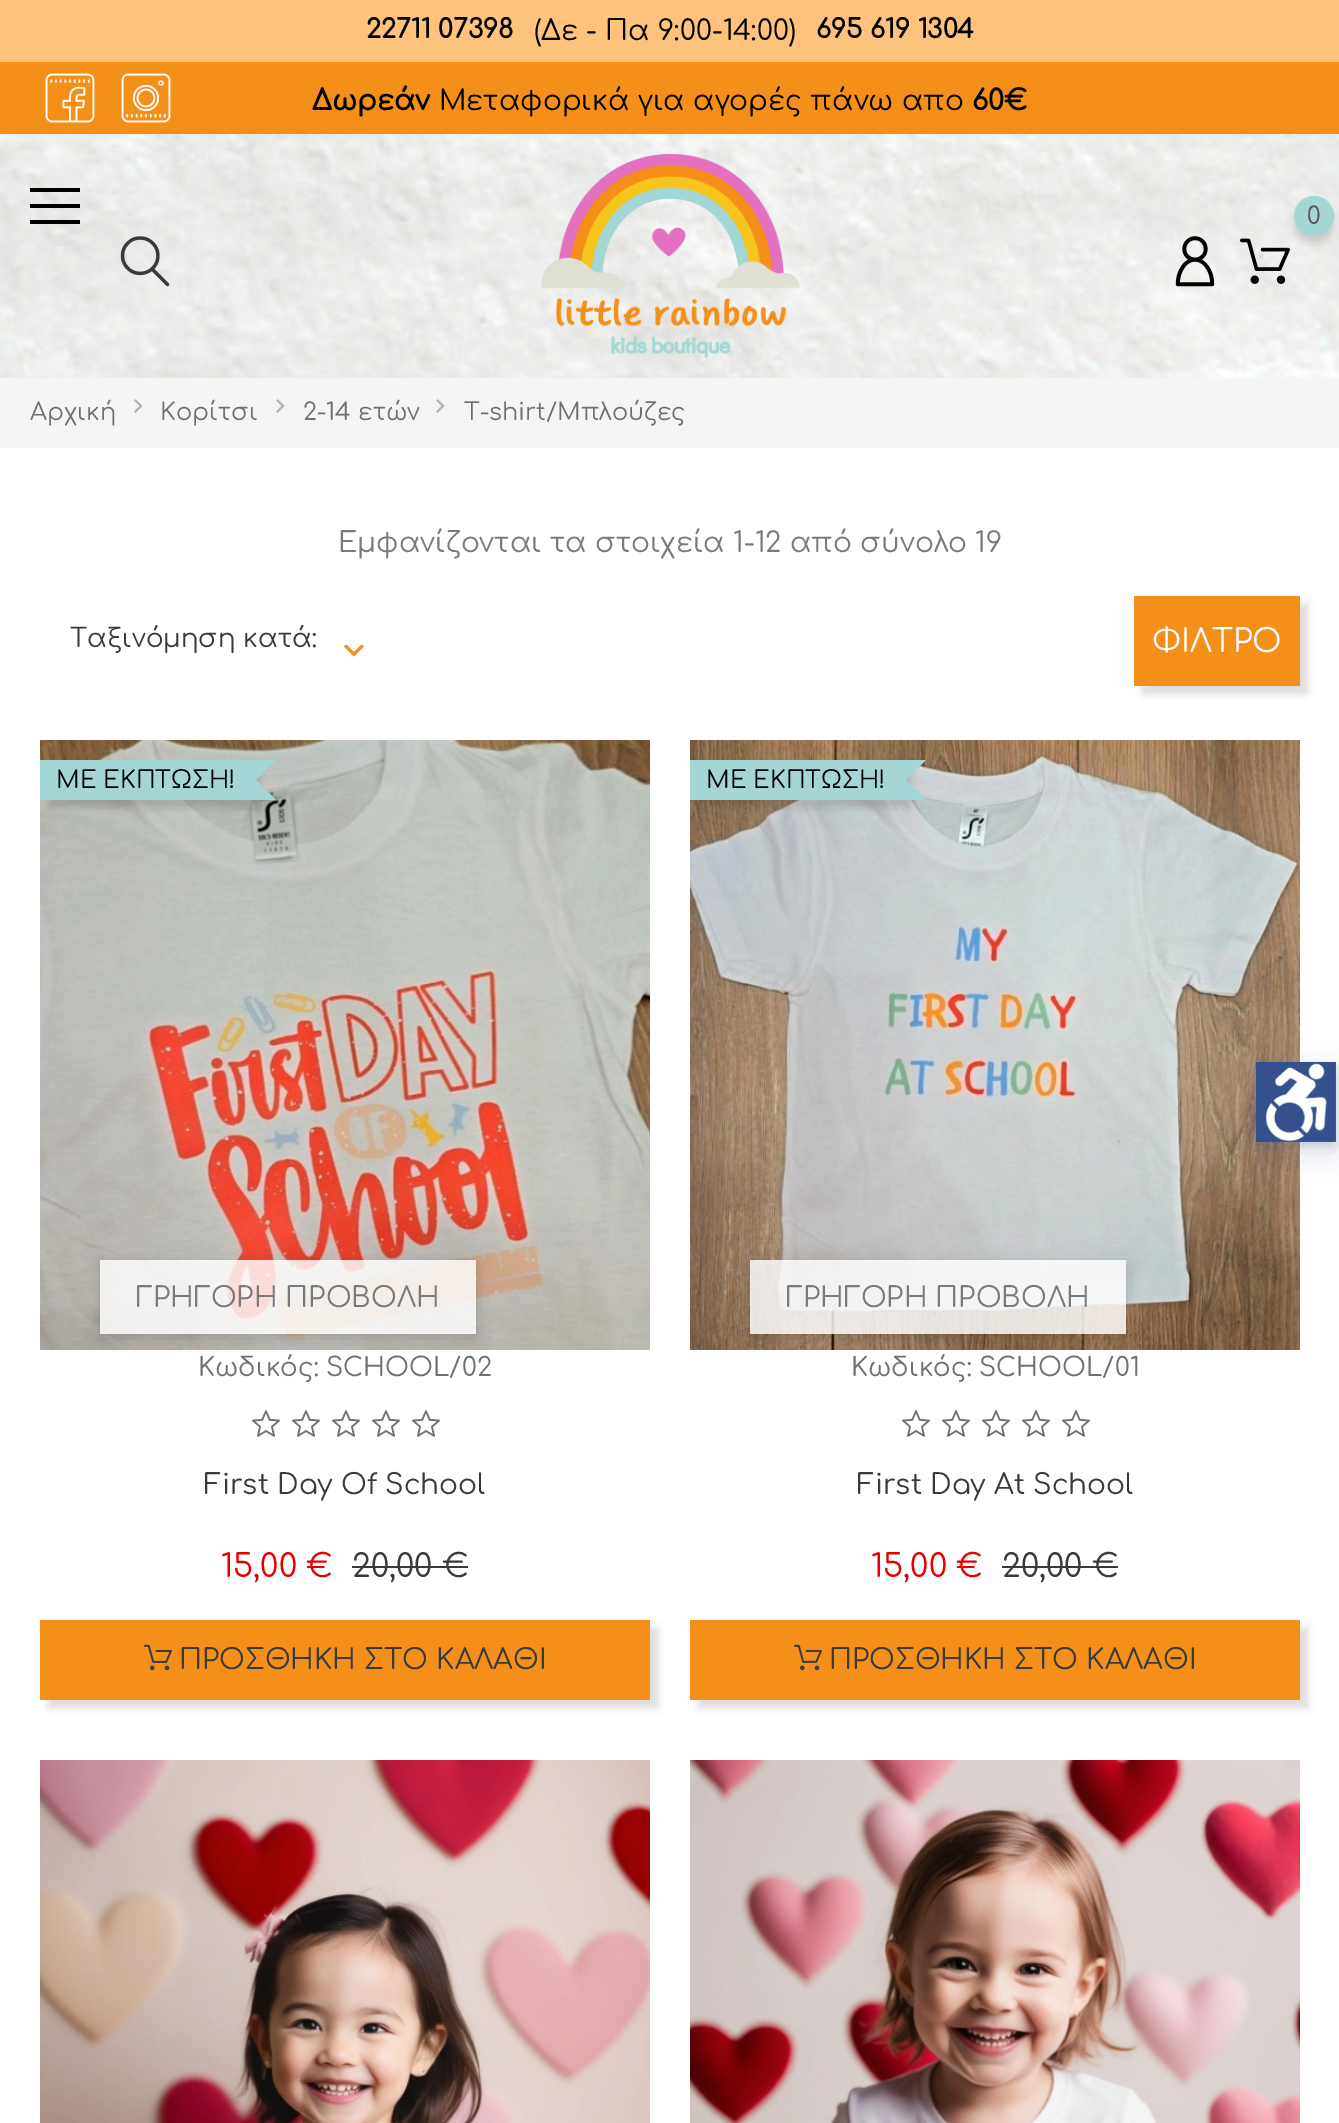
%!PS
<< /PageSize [1339 2123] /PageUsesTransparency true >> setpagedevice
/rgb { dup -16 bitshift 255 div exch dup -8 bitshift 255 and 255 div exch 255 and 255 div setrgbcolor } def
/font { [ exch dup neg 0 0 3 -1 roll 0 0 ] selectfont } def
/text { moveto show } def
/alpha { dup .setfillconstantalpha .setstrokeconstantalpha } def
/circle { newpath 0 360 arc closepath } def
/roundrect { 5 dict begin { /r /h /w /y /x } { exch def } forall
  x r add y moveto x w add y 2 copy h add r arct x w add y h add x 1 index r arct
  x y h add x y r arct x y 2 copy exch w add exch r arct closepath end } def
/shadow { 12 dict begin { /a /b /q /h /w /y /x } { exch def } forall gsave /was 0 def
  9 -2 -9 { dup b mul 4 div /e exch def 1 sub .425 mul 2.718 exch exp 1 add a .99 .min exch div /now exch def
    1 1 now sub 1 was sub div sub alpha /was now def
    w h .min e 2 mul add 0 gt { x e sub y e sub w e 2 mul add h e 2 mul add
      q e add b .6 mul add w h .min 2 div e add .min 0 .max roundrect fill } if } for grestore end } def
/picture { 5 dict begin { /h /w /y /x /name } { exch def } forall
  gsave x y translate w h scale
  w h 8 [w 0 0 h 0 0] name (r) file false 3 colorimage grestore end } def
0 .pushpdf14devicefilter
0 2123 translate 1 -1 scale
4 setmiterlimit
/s1 { /Comfortaa-Bold 26 font 16#000000 rgb } def
/s2 { /Comfortaa-Regular 28 font 16#000000 rgb } def
/s3 { /Comfortaa-Bold 28 font 16#000000 rgb } def
/s4 { /Comfortaa-Regular 24 font 16#575757 rgb } def
/s5 { /Comfortaa-Regular 24 font 16#707070 rgb } def
/s6 { /Comfortaa-Regular 28 font 16#7A7A7A rgb } def
/s7 { /Comfortaa-Regular 26 font 16#3A3A3A rgb } def
/s8 { /Comfortaa-Regular 32 font 16#FFFFFF rgb } def
/s9 { /Comfortaa-Regular 24 font 16#000000 rgb } def
/s10 { /Comfortaa-Regular 26 font 16#707070 rgb } def
/s11 { /Comfortaa-Regular 28 font 16#3A3A3A rgb } def
/s12 { /Comfortaa-Regular 32 font 16#E60000 rgb } def
/s13 { /Comfortaa-Regular 32 font 16#3A3A3A rgb } def
16#FFFFFF rgb
0 0 1339 2123 rectfill
16#FDC27C rgb
0 0 1339 62 rectfill
s1
(22711 07398) 366 38 text
s2
(\(Δε - Πα 9:00-14:00\)) 534 40 text
s1
(695 619 1304) 816 38 text
16#F48F19 rgb
0 62 1339 72 rectfill
(pic1.raw) 45 73 50 50 picture
(pic2.raw) 121 73 50 50 picture
s3
(Δωρεάν) 312 110 text
s2
(Μεταφορικά για αγορές πάνω απο) 439 110 text
s3
(60€) 972 110 text
(pic3.raw) 0 134 1339 244 picture
30 188 50 4 rectfill
30 204 50 4 rectfill
30 220 50 4 rectfill
(pic4.raw) 541 154 259 204 picture
(pic5.raw) 1240 238 50 46 picture
1294 204 40 40 20 4 0.14 shadow
16#A4D6D6 rgb
1314 216 20 circle fill
s4
(0) 1307 224 text
(pic6.raw) 120 236 50 51 picture
(pic7.raw) 1175 236 40 51 picture
16#F5F5F5 rgb
0 378 1339 70 rectfill
s5
(Αρχική) 30 420 text
(pic8.raw) 134 399 9 14 picture
(Κορίτσι) 160 420 text
(pic8.raw) 276 399 9 14 picture
(2-14 ετών) 303 420 text
(pic8.raw) 436 399 9 14 picture
(T-shirt/Μπλούζες) 464 420 text
s6
(Εμφανίζονται τα στοιχεία 1-12 από σύνολο 19) 338 552 text
s7
(Ταξινόμηση κατά:) 70 647 text
16#F48F19 rgb
361.5 644.5 moveto 364 646.5 lineto 354 656.5 lineto 344 646.5 lineto 346.5 644.5 lineto 354 652 lineto closepath fill
16#000000 rgb
1142 604 166 90 0 4 0.14 shadow
16#F48F19 rgb
1134 596 166 90 rectfill
s8
(ΦΙΛΤΡΟ) 1152 652 text
(pic9.raw) 40 740 610 610 picture
16#000000 rgb
48 768 212 40 0 4 0.14 shadow
16#A4D6D6 rgb
40 760 196 40 rectfill
s9
(ΜΕ ΕΚΠΤΩΣΗ!) 56 788 text
16#A4D6D6 rgb
236 760 moveto 276 760 lineto 256 780 lineto closepath 276 800 moveto 236 800 lineto 256 780 lineto closepath fill
236 760 20 40 rectfill
gsave
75 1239 moveto 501 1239 lineto 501 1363 lineto 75 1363 lineto closepath 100 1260 moveto 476 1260 lineto 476 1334 lineto 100 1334 lineto closepath eoclip newpath
16#000000 rgb
100 1264 376 74 0 8 0.16 shadow
grestore
0.82 alpha
16#FFFFFF rgb
100 1260 376 74 rectfill
1 alpha
s6
(ΓΡΗΓΟΡΗ ΠΡΟΒΟΛΗ) 136 1307 text
s10
(Κωδικός:) 198 1376 text
(SCHOOL/02) 326 1376 text
(pic10.raw) 252 1410 28 27 picture
(pic10.raw) 292 1410 28 27 picture
(pic10.raw) 332 1410 28 27 picture
(pic10.raw) 372 1410 28 27 picture
(pic10.raw) 412 1410 28 27 picture
s11
(First Day Of School) 204 1494 text
s12
(15,00 €) 221 1577 text
s13
(20,00 €) 352 1577 text
352 1566 116 2 rectfill
16#000000 rgb
48 1628 610 80 0 4 0.14 shadow
16#F48F19 rgb
40 1620 610 80 rectfill
(pic11.raw) 144 1644 28 27 picture
s11
(ΠΡΟΣΘΗΚΗ ΣΤΟ ΚΑΛΑΘΙ) 179 1669 text
(pic12.raw) 690 740 610 610 picture
16#000000 rgb
698 768 212 40 0 4 0.14 shadow
16#A4D6D6 rgb
690 760 196 40 rectfill
s9
(ΜΕ ΕΚΠΤΩΣΗ!) 706 788 text
16#A4D6D6 rgb
886 760 moveto 926 760 lineto 906 780 lineto closepath 926 800 moveto 886 800 lineto 906 780 lineto closepath fill
886 760 20 40 rectfill
gsave
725 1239 moveto 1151 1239 lineto 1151 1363 lineto 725 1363 lineto closepath 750 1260 moveto 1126 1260 lineto 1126 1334 lineto 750 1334 lineto closepath eoclip newpath
16#000000 rgb
750 1264 376 74 0 8 0.16 shadow
grestore
0.82 alpha
16#FFFFFF rgb
750 1260 376 74 rectfill
1 alpha
s6
(ΓΡΗΓΟΡΗ ΠΡΟΒΟΛΗ) 786 1307 text
s10
(Κωδικός:) 851 1376 text
(SCHOOL/01) 979 1376 text
(pic10.raw) 902 1410 28 27 picture
(pic10.raw) 942 1410 28 27 picture
(pic10.raw) 982 1410 28 27 picture
(pic10.raw) 1022 1410 28 27 picture
(pic10.raw) 1062 1410 28 27 picture
s11
(First Day At School) 857 1494 text
s12
(15,00 €) 871 1577 text
s13
(20,00 €) 1002 1577 text
1002 1566 116 2 rectfill
16#000000 rgb
698 1628 610 80 0 4 0.14 shadow
16#F48F19 rgb
690 1620 610 80 rectfill
(pic11.raw) 794 1644 28 27 picture
s11
(ΠΡΟΣΘΗΚΗ ΣΤΟ ΚΑΛΑΘΙ) 829 1669 text
(pic13.raw) 40 1760 610 363 picture
(pic14.raw) 690 1760 610 363 picture
16#5D6494 rgb
1256 1066 80 80 0 4 0.2 shadow
16#252C61 rgb
1256 1072 80 80 0 15 0.15 shadow
(pic15.raw) 1256 1062 80 80 picture
.poppdf14devicefilter showpage
